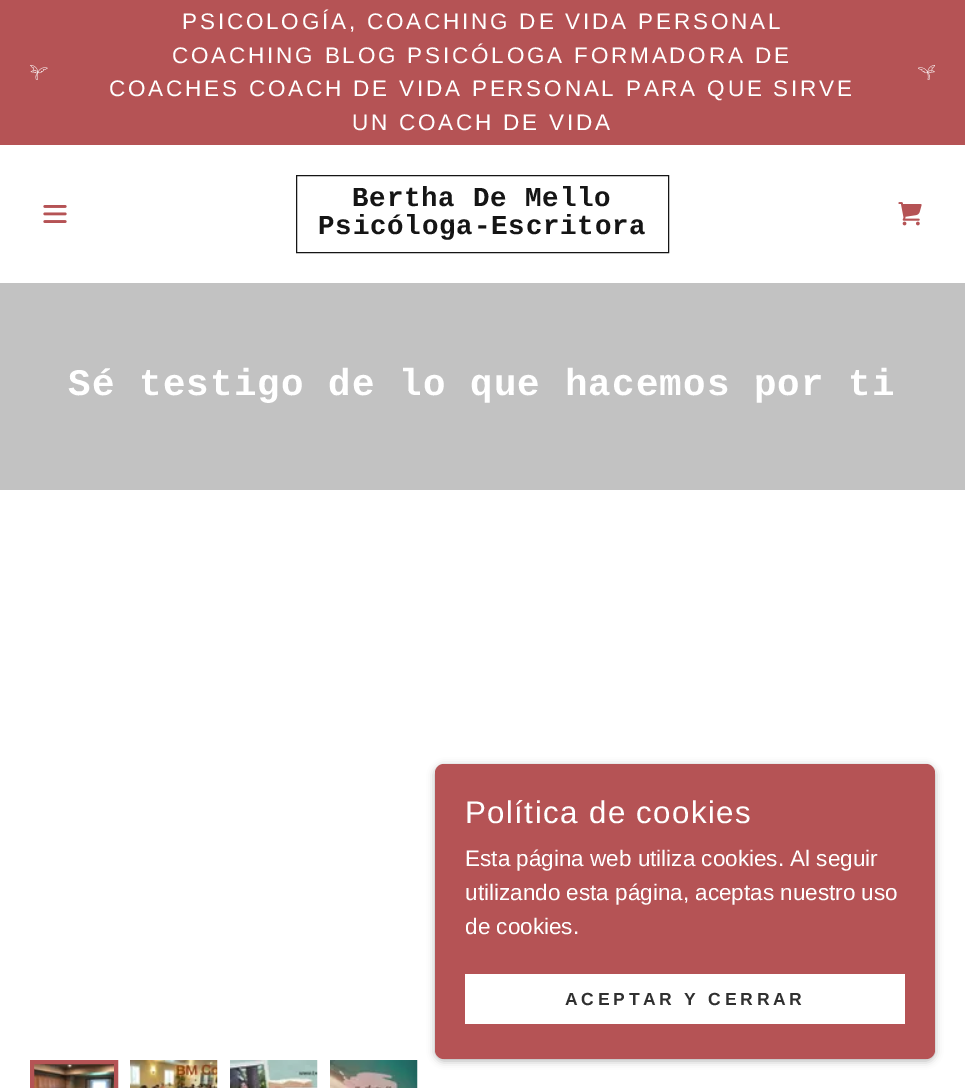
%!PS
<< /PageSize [965 1088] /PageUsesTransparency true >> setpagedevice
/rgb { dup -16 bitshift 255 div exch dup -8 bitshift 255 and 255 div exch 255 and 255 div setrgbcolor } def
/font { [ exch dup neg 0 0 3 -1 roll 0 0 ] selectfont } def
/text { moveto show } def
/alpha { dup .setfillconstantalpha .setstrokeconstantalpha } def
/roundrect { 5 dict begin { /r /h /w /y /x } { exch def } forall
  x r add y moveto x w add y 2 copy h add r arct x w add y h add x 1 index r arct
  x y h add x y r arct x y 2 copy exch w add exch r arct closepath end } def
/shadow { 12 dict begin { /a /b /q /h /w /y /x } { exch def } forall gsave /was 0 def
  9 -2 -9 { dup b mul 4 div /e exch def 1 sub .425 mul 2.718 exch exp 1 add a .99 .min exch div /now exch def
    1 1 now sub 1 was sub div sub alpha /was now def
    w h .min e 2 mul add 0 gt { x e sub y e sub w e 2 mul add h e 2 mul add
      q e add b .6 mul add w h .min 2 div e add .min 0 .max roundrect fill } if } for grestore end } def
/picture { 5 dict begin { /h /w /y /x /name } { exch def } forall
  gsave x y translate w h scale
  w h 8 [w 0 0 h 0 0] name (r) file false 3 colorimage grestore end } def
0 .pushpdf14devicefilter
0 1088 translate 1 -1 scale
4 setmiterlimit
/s1 { /LiberationSans-Regular 22.5 font 16#FFFFFF rgb } def
16#FFFFFF rgb
0 0 965 1088 rectfill
16#B55355 rgb
0 0 965 145 rectfill
(pic1.raw) 30 65 18 15 picture
/LiberationSans-Regular 22.5 font
16#FFFFFF rgb
182 29 moveto 2.8 0 (PSICOLOGÍA, COACHING DE VIDA PERSONAL) ashow
172 63 moveto 2.8 0 (COACHING BLOG PSICÓLOGA FORMADORA DE) ashow
109 96 moveto 2.8 0 (COACHES COACH DE VIDA PERSONAL PARA QUE SIRVE) ashow
352 130 moveto 2.8 0 (UN COACH DE VIDA) ashow
(pic2.raw) 918 65 17 15 picture
(pic3.raw) 43 205 24 18 picture
16#151515 rgb
296.5 175.5 372 77 rectstroke
/LiberationMono-Bold 27.5 font
352 206 moveto 0.8 0 (Bertha De Mello) ashow
318 234 moveto 0.8 0 (Psicóloga-Escritora) ashow
(pic4.raw) 898 202 24 24 picture
16#C2C2C2 rgb
0 283 965 207 rectfill
/LiberationMono-Bold 37.5 font
16#FFFFFF rgb
68 395 moveto 1.15 0 (Sé testigo de lo que hacemos por ti) ashow
16#000000 rgb
435 766 500 295 9 4 0.3 shadow
16#B55355 rgb
435 764 500 295 9 roundrect fill
/LiberationSans-Regular 31.25 font
16#FFFFFF rgb
465 823 moveto 1.4 0 (Política de cookies) ashow
s1
(Esta página web utiliza cookies. Al seguir) 465 866 text
(utilizando esta página, aceptas nuestro uso) 465 900 text
(de cookies.) 465 934 text
465 974 440 50 rectfill
/LiberationSans-Bold 17.5 font
16#303030 rgb
565 1005 moveto 3.75 0 (ACEPTAR Y CERRAR) ashow
(pic5.raw) 34 1064 80 24 picture
16#B55355 rgb
4 setlinewidth
32 1062 84 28 rectstroke
(pic6.raw) 130 1060 88 28 picture
(pic7.raw) 230 1060 88 28 picture
(pic8.raw) 330 1060 88 28 picture
.poppdf14devicefilter showpage
